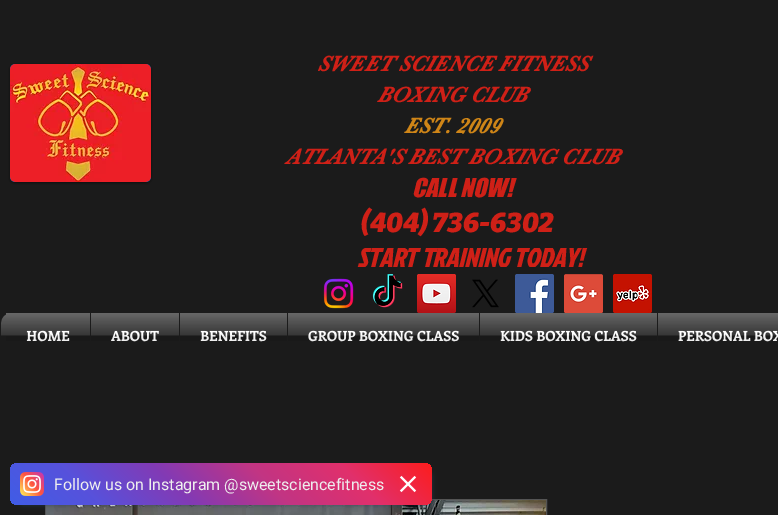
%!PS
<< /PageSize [778 515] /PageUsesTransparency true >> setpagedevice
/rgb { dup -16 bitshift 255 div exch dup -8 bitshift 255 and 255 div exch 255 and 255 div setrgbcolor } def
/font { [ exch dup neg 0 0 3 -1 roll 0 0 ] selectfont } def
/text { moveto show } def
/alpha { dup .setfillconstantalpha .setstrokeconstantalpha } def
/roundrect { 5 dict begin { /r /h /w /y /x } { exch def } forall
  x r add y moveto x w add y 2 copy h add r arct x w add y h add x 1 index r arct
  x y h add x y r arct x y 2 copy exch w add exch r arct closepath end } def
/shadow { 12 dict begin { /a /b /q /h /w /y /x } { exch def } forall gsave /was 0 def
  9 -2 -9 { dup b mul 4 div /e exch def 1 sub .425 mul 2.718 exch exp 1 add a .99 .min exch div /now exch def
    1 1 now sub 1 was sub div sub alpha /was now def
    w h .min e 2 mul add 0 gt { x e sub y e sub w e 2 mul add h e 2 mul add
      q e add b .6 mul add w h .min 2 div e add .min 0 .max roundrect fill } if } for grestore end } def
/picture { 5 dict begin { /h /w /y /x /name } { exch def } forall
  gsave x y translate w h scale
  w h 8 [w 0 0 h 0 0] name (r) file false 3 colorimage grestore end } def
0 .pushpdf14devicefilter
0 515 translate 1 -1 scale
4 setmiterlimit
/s1 { /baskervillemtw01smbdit-BoldItalic 22 font 16#CF2017 rgb } def
/s2 { /baskervillemtw01smbdit-BoldItalic 22 font 16#CF8517 rgb } def
/s3 { /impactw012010-Italic 24 font 16#CF2017 rgb } def
/s4 { /Bitter-ThinItalic 27 font 16#CF2017 rgb } def
/s5 { /JockeyOne-BoldItalic 26 font 16#CF2017 rgb } def
/s6 { /Enriqueta-Bold 14 font 16#FFFFFF rgb } def
/s7 { /Roboto-Regular 16 font 16#EEEEEE rgb } def
16#1B1B1B rgb
0 0 778 515 rectfill
16#000000 rgb
10 65 141 118 5 1.5 0.5 shadow
16#3364AF rgb
10 64 141 118 5 roundrect fill
(pic1.raw) 10 64 141 118 picture
s1
(SWEET SCIENCE FITNESS) 317 71 text
(BOXING CLUB) 377 102 text
s2
(EST. 2009) 404 133 text
s1
(ATLANTA'S BEST BOXING CLUB) 286 164 text
s3
(CALL NOW!) 412 197 text
s4
(\(404\) 736-6302) 361 232 text
s5
(START TRAINING TODAY!) 357 267 text
(pic2.raw) 323 278 31 31 picture
(pic3.raw) 372 274 31 34 picture
(pic4.raw) 417 274 39 39 picture
(pic5.raw) 472 279 27 29 picture
(pic6.raw) 515 274 39 39 picture
(pic7.raw) 564 274 39 39 picture
(pic8.raw) 613 274 39 39 picture
(pic9.raw) 1 314 5 22 picture
s6
(HOME) 26 341 text
(pic10.raw) 6 313 84 28 picture
(ABOUT) 111 341 text
(pic11.raw) 91 313 88 28 picture
(BENEFITS) 200 341 text
(pic12.raw) 180 313 107 28 picture
(GROUP BOXING CLASS) 308 341 text
(pic13.raw) 288 313 191 28 picture
(KIDS BOXING CLASS) 500 341 text
(pic14.raw) 480 313 177 28 picture
(PERSONAL BOX) 678 341 text
(pic15.raw) 658 313 120 28 picture
16#545454 rgb
45.5 499.5 501 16 rectstroke
(pic16.raw) 46 500 500 15 picture
16#223C50 rgb
20 473 412 32 3 2.5 0.6 shadow
gsave 10 463 422 42 8 roundrect clip newpath
<< /ShadingType 2 /ColorSpace /DeviceRGB /Coords [105 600 337 368] /Extend [true true] /Function << /FunctionType 3 /Domain [0 1] /Functions [<< /FunctionType 2 /Domain [0 1] /C0 [0.251 0.365 0.902] /C1 [0.345 0.318 0.859] /N 1 >> << /FunctionType 2 /Domain [0 1] /C0 [0.345 0.318 0.859] /C1 [0.514 0.227 0.706] /N 1 >> << /FunctionType 2 /Domain [0 1] /C0 [0.514 0.227 0.706] /C1 [0.757 0.208 0.518] /N 1 >> << /FunctionType 2 /Domain [0 1] /C0 [0.757 0.208 0.518] /C1 [0.882 0.188 0.424] /N 1 >> << /FunctionType 2 /Domain [0 1] /C0 [0.882 0.188 0.424] /C1 [0.992 0.114 0.114] /N 1 >>] /Bounds [0.2 0.4 0.6 0.8] /Encode [0 1 0 1 0 1 0 1 0 1] >> >> shfill grestore
(pic17.raw) 20 472 24 24 picture
s7
(Follow us on Instagram @sweetsciencefitness) 54 490 text
(pic18.raw) 399 475 18 18 picture
.poppdf14devicefilter showpage
